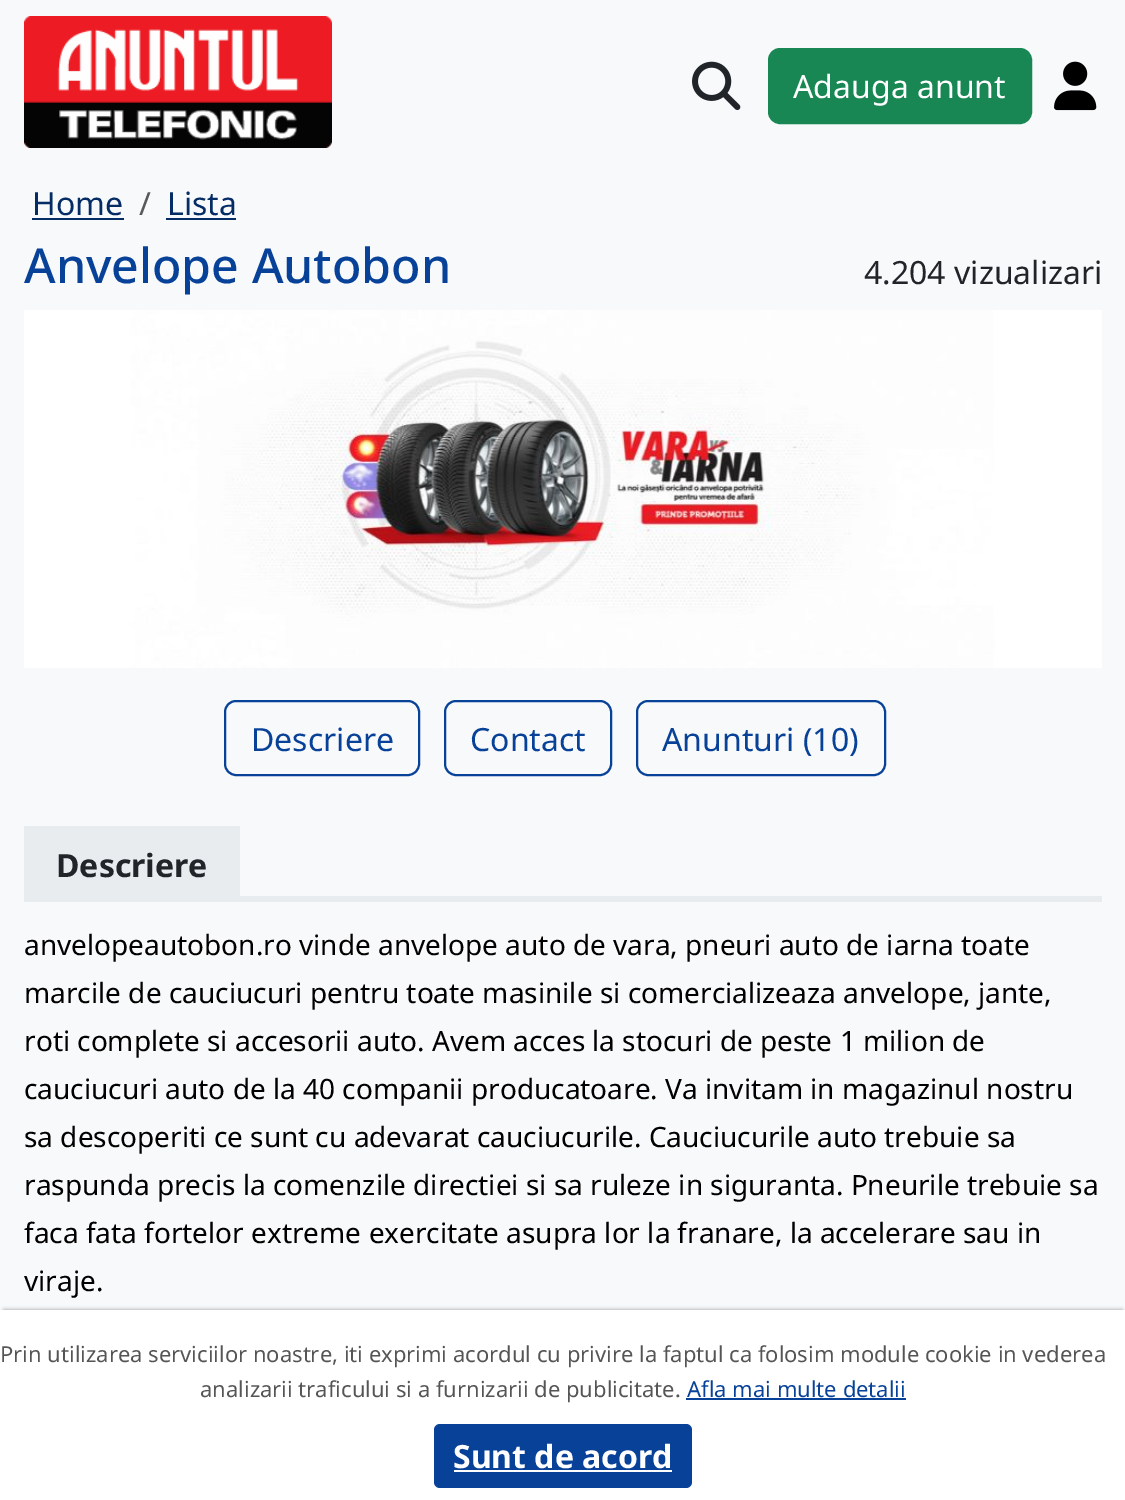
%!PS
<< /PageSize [1125 1500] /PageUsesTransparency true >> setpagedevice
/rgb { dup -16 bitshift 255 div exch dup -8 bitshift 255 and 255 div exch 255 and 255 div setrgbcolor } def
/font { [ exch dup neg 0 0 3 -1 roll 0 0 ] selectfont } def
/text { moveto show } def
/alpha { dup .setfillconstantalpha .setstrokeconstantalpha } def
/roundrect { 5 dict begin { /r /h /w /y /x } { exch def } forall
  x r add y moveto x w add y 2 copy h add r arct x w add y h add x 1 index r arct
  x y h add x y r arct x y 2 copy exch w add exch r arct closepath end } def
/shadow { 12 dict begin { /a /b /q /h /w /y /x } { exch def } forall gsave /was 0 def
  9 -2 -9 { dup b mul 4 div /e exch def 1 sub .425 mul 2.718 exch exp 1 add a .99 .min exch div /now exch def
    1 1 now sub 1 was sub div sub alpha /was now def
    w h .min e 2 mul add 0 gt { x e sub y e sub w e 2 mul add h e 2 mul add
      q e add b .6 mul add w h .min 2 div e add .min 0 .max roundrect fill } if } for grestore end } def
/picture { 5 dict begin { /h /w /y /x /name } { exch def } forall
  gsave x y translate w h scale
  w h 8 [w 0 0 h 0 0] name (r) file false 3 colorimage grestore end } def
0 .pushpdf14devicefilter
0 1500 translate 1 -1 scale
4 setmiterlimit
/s1 { /NotoSans-Regular 32 font 16#FFFFFF rgb } def
/s2 { /NotoSans-Regular 32 font 16#052C65 rgb } def
/s3 { /NotoSans-Regular 32 font 16#575A5D rgb } def
/s4 { /NotoSans-Medium 48.25 font 16#084298 rgb } def
/s5 { /NotoSans-Regular 32 font 16#212529 rgb } def
/s6 { /NotoSans-Regular 32 font 16#084298 rgb } def
/s7 { /NotoSans-Bold 32 font 16#212529 rgb } def
/s8 { /NotoSans-Regular 28 font 16#000000 rgb } def
/s9 { /NotoSans-Regular 22 font 16#555555 rgb } def
/s10 { /NotoSans-Regular 22 font 16#084298 rgb } def
/s11 { /NotoSans-Bold 32 font 16#FFFFFF rgb } def
16#F8F9FA rgb
0 0 1125 1500 rectfill
(pic1.raw) 24 16 308 132 picture
(pic2.raw) 692 61 49 49 picture
16#198754 rgb
769 49 262 74 11 roundrect gsave fill grestore
2 setlinewidth
stroke
s1
(Adauga anunt) 793 98 text
(pic3.raw) 1054 61 43 50 picture
s2
(Home) 32 215 text
32 218 92 2 rectfill
s3
(/) 139 215 text
s2
(Lista) 167 215 text
166 218 70 2 rectfill
s4
(Anvelope Autobon) 24 283 text
s5
(4.204 vizualizari) 864 284 text
(pic4.raw) 24 310 1078 358 picture
16#084298 rgb
225 701 194 74 11 roundrect stroke
(Descriere) 251 751 text
445 701 166 74 11 roundrect stroke
(Contact) 470 751 text
637 701 248 74 11 roundrect stroke
(Anunturi \(10\)) 662 751 text
16#E9ECEF rgb
240 896 862 6 rectfill
24 826 216 76 rectfill
s7
(Descriere) 56 877 text
s8
(anvelopeautobon.ro vinde anvelope auto de vara, pneuri auto de iarna toate) 24 955 text
(marcile de cauciucuri pentru toate masinile si comercializeaza anvelope, jante,) 24 1003 text
(roti complete si accesorii auto. Avem acces la stocuri de peste 1 milion de) 24 1051 text
(cauciucuri auto de la 40 companii producatoare. Va invitam in magazinul nostru) 24 1099 text
(sa descoperiti ce sunt cu adevarat cauciucurile. Cauciucurile auto trebuie sa) 24 1147 text
(raspunda precis la comenzile directiei si sa ruleze in siguranta. Pneurile trebuie sa) 24 1195 text
(faca fata fortelor extreme exercitate asupra lor la franare, la accelerare sau in) 24 1243 text
(viraje.) 24 1291 text
4 1310 1118 182 0 2 0.4 shadow
16#FFFFFF rgb
0 1310 1125 190 rectfill
s9
(Prin utilizarea serviciilor noastre, iti exprimi acordul cu privire la faptul ca folosim module cookie in vederea) 0 1362 text
(analizarii traficului si a furnizarii de publicitate.) 200 1397 text
s10
(Afla mai multe detalii) 687 1397 text
686 1398 220 2 rectfill
434 1424 258 64 6 roundrect fill
s11
(Sunt de acord) 453 1468 text
454 1470 218 2 rectfill
.poppdf14devicefilter showpage
